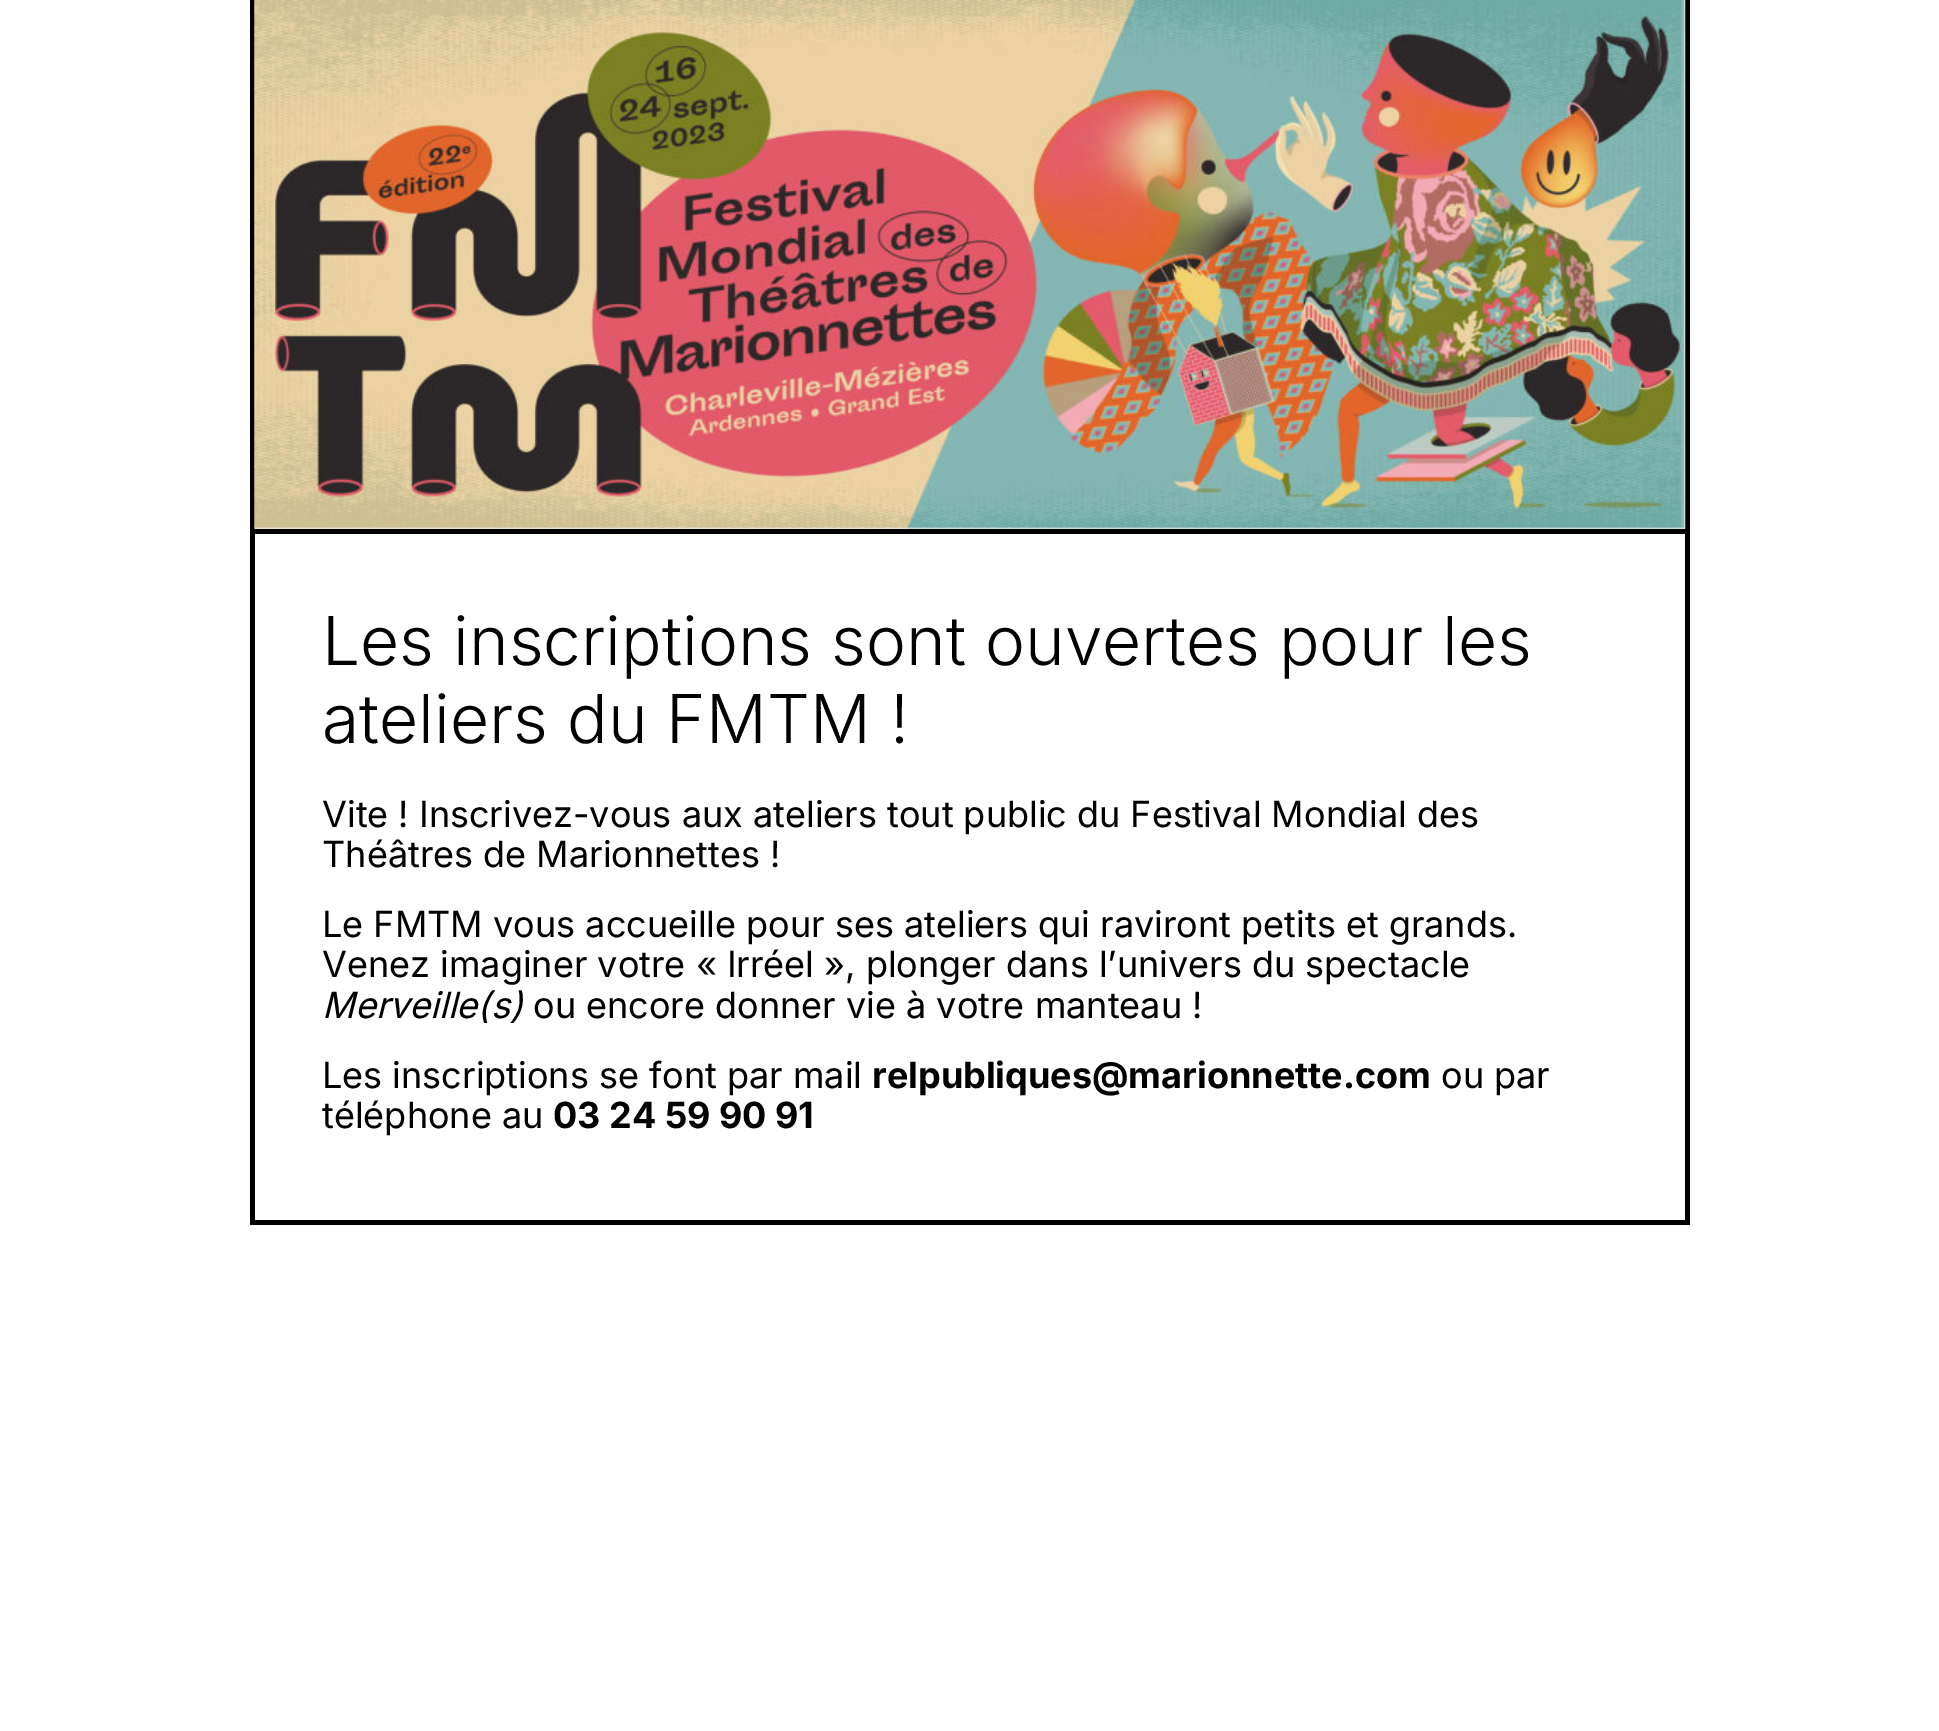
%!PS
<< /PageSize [1939 1731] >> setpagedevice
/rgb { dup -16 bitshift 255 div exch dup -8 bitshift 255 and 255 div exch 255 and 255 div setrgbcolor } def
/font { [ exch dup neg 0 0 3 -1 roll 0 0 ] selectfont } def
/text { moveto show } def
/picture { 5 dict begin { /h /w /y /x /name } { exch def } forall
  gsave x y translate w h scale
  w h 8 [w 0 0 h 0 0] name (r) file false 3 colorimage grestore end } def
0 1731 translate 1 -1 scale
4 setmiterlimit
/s1 { /Inter-Light 67.5 font 16#000000 rgb } def
/s2 { /Inter-Regular 36 font 16#000000 rgb } def
/s3 { /Inter-Italic 36 font 16#000000 rgb } def
/s4 { /Inter-Bold 36 font 16#000000 rgb } def
16#FFFFFF rgb
0 0 1939 1731 rectfill
16#000000 rgb
1685 0 5 533 rectfill
250 529 1440 5 rectfill
250 0 5 533 rectfill
(pic1.raw) 254 0 1432 529 picture
1685 531 5 693 rectfill
250 1220 1440 5 rectfill
250 531 5 693 rectfill
s1
(Les inscriptions sont ouvertes pour les) 322 665 text
(ateliers du FMTM !) 322 743 text
s2
(Vite ! Inscrivez-vous aux ateliers tout public du Festival Mondial des) 322 827 text
(Théâtres de Marionnettes !) 322 867 text
(Le FMTM vous accueille pour ses ateliers qui raviront petits et grands.) 322 937 text
(Venez imaginer votre « Irréel », plonger dans l’univers du spectacle) 322 977 text
s3
(Merveille\(s\)) 322 1018 text
s2
(ou encore donner vie à votre manteau !) 533 1018 text
(Les inscriptions se font par mail) 322 1088 text
s4
(relpubliques@marionnette.com) 872 1088 text
s2
(ou par) 1441 1088 text
(téléphone au) 322 1128 text
s4
(03 24 59 90 91) 553 1128 text
showpage
